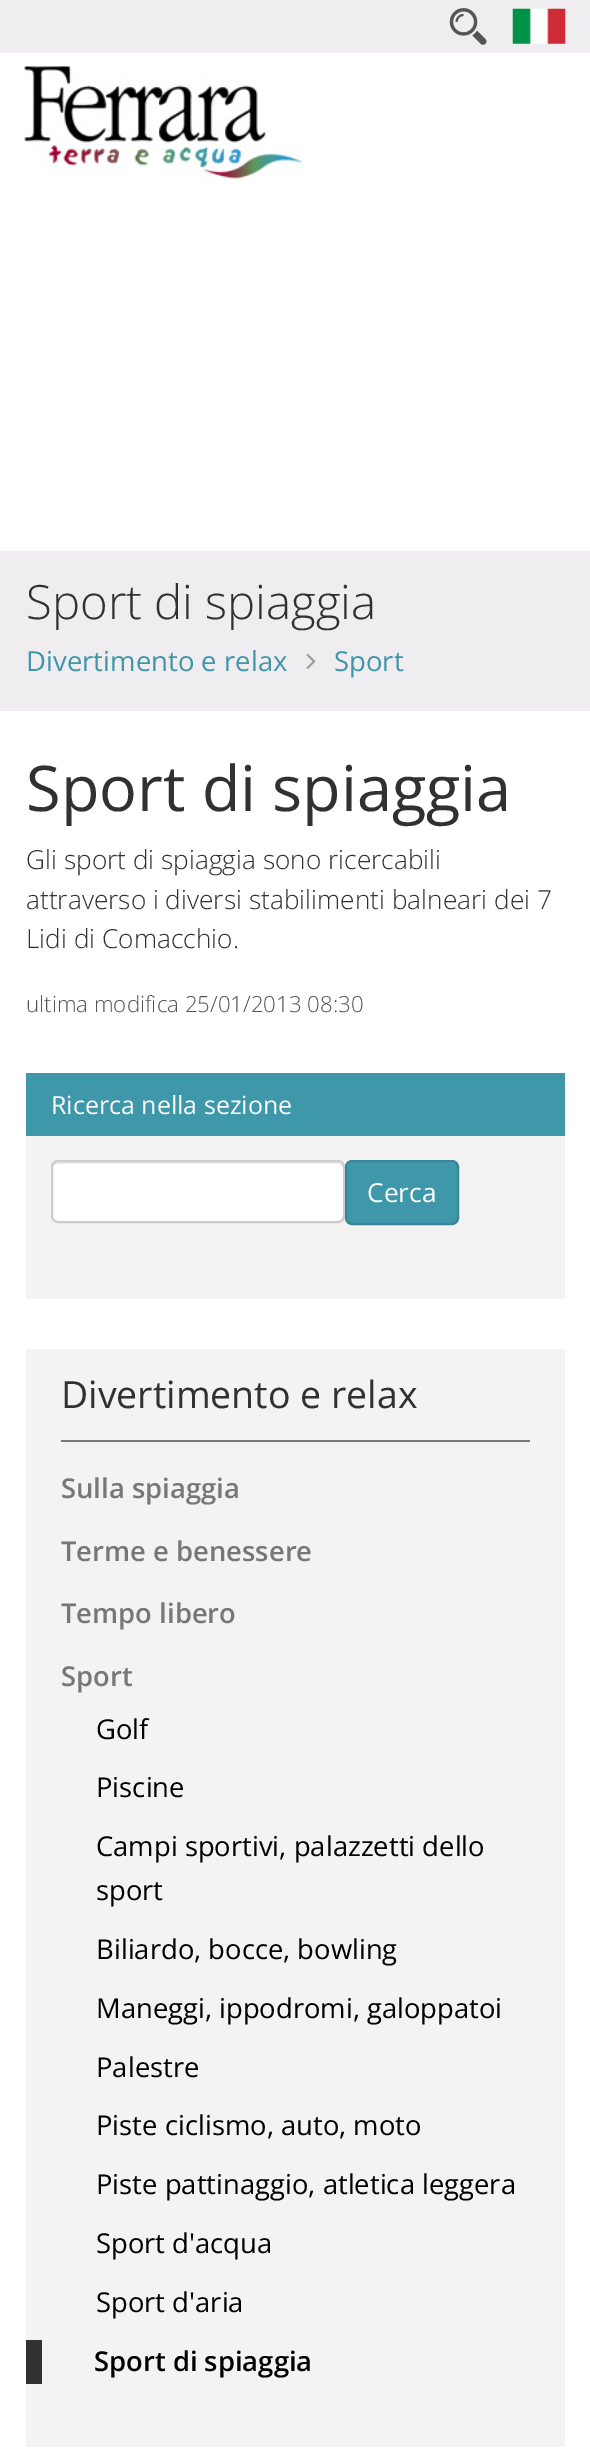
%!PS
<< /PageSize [590 2461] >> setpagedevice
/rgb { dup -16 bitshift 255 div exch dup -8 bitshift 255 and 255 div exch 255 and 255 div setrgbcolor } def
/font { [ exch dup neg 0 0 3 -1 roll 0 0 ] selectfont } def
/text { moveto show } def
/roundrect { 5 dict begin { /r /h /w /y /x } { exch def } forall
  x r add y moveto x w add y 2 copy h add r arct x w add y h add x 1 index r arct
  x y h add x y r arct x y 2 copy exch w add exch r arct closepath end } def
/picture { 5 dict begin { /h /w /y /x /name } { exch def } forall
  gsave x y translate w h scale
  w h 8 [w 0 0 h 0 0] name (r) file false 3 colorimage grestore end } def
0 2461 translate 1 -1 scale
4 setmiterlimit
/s1 { /OpenSans-Light 47.25 font 16#313131 rgb } def
/s2 { /OpenSans-Regular 27.5 font 16#3F97AA rgb } def
/s3 { /OpenSans-Regular 63 font 16#313131 rgb } def
/s4 { /OpenSans-Light 26.25 font 16#313131 rgb } def
/s5 { /OpenSans-Light 22.25 font 16#555555 rgb } def
/s6 { /OpenSans-Regular 25 font 16#FFFFFF rgb } def
/s7 { /OpenSans-Regular 26.25 font 16#FFFFFF rgb } def
/s8 { /OpenSans-Regular 37.5 font 16#313131 rgb } def
/s9 { /OpenSans-SemiBold 27.4 font 16#777777 rgb } def
/s10 { /OpenSans-Regular 27.4 font 16#000000 rgb } def
/s11 { /OpenSans-SemiBold 27.4 font 16#000000 rgb } def
16#FFFFFF rgb
0 0 590 2461 rectfill
16#EFEDEF rgb
0 0 590 53 rectfill
(pic1.raw) 512 8 54 36 picture
(pic2.raw) 449 8 38 37 picture
(pic3.raw) 24 66 279 113 picture
0 551 590 160 rectfill
s1
(Sport di spiaggia) 26 619 text
s2
(Divertimento e relax) 26 671 text
(pic4.raw) 306 653 10 16 picture
(Sport) 334 671 text
s3
(Sport di spiaggia) 26 811 text
s4
(Gli sport di spiaggia sono ricercabili) 26 869 text
(attraverso i diversi stabilimenti balneari dei 7) 26 909 text
(Lidi di Comacchio.) 26 948 text
s5
(ultima modifica 25/01/2013 08:30) 26 1012 text
16#F3F3F3 rgb
26 1136 539 163 rectfill
16#3F97AA rgb
26 1073 539 63 rectfill
s6
(Ricerca nella sezione) 51 1114 text
51 1160 294 63 7 roundrect fill
16#ECECEC rgb
58 1164 moveto 338 1164 lineto 341 1164 343 1166 343 1169 curveto 343 1167 lineto 343 1164 341 1162 338 1162 curveto 58 1162 lineto 56 1162 53 1164 53 1166 curveto 54 1165 56 1164 58 1164 curveto closepath fill
16#CCCCCC rgb
2 setlinewidth
52 1161 292 61 6 roundrect stroke
16#3F97AA rgb
346 1161 112 63 6 roundrect gsave fill grestore
16#388697 rgb
stroke
s7
(Cerca) 367 1202 text
16#F3F3F3 rgb
26 1349 539 1098 rectfill
16#777777 rgb
61 1440 469 2 rectfill
s8
(Divertimento e relax) 61 1408 text
s9
(Sulla spiaggia) 61 1498 text
(Terme e benessere) 61 1561 text
(Tempo libero) 61 1623 text
(Sport) 61 1686 text
s10
(Golf) 96 1739 text
(Piscine) 96 1797 text
(Campi sportivi, palazzetti dello) 96 1856 text
(sport) 96 1900 text
(Biliardo, bocce, bowling) 96 1959 text
(Maneggi, ippodromi, galoppatoi) 96 2018 text
(Palestre) 96 2077 text
(Piste ciclismo, auto, moto) 96 2135 text
(Piste pattinaggio, atletica leggera) 96 2194 text
(Sport d'acqua) 96 2253 text
(Sport d'aria) 96 2312 text
16#313131 rgb
26 2340 16 44 rectfill
s11
(Sport di spiaggia) 94 2371 text
showpage
